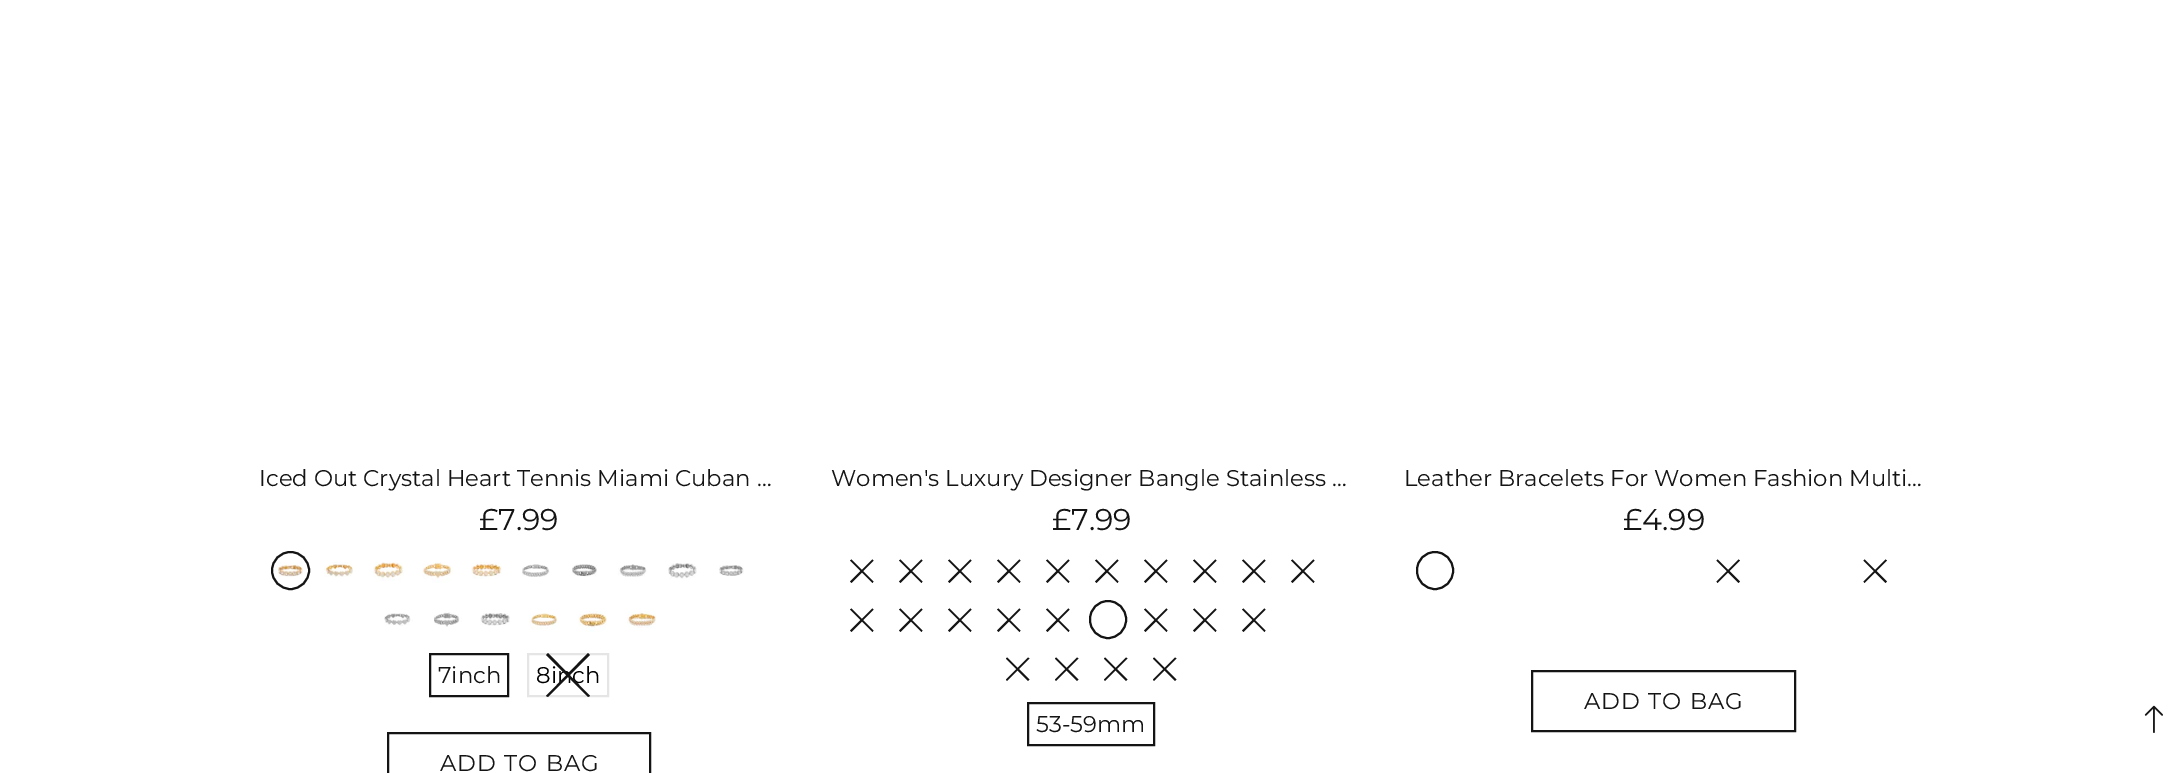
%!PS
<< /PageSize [2179 773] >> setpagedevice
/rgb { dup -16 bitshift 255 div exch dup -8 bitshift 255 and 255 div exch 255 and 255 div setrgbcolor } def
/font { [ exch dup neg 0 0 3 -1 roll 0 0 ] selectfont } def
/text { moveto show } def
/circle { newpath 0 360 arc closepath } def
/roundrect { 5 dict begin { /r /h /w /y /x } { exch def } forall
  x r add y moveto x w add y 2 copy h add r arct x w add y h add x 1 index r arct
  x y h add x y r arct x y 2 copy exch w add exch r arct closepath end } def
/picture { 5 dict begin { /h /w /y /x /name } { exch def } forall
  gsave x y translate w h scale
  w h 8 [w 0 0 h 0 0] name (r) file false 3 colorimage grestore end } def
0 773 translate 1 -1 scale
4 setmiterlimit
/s1 { /Montserrat-Regular 22.75 font 16#141414 rgb } def
/s2 { /Montserrat-Regular 30 font 16#141414 rgb } def
/s3 { /Montserrat-Regular 22.75 font 16#000000 rgb } def
16#FFFFFF rgb
0 0 2179 773 rectfill
s1
(Iced Out Crystal Heart Tennis Miami Cuban …) 259 486 text
s2
(£7.99) 479 530 text
(pic1.raw) 275 562 28 15 picture
2 setlinewidth
290.5 570.5 18.5 circle stroke
(pic2.raw) 324 562 29 15 picture
(pic3.raw) 373 562 31 19 picture
(pic4.raw) 422 562 31 21 picture
(pic5.raw) 471 562 31 17 picture
(pic6.raw) 522 564 28 13 picture
(pic7.raw) 572 564 25 13 picture
(pic8.raw) 618 564 29 13 picture
(pic9.raw) 668 563 29 16 picture
(pic10.raw) 719 565 25 11 picture
(pic11.raw) 384 613 29 13 picture
(pic12.raw) 434 612 28 15 picture
(pic13.raw) 480 613 30 13 picture
(pic14.raw) 529 613 29 17 picture
(pic15.raw) 578 611 29 21 picture
(pic16.raw) 627 611 29 17 picture
430 654 78 42 rectstroke
s1
(7inch) 438 683 text
16#E5E5E5 rgb
528 654 80 42 rectstroke
s3
(8inch) 536 683 text
16#141414 rgb
548 653 moveto 590 696 lineto 588 697 lineto 546 655 lineto closepath fill
546 696 moveto 588 653 lineto 590 655 lineto 548 697 lineto closepath fill
388 733 262 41 rectstroke
440 771 moveto 1.1 0 (ADD TO BAG) ashow
(Women's Luxury Designer Bangle Stainless …) 831 486 text
s2
(£7.99) 1052 530 text
851.5 559.5 moveto 873.5 581.5 lineto 872.5 583 lineto 850 560.5 lineto closepath fill
850 581.5 moveto 872.5 559.5 lineto 873.5 560.5 lineto 851.5 583 lineto closepath fill
900.5 559.5 moveto 922.5 581.5 lineto 921.5 583 lineto 899 560.5 lineto closepath fill
899 581.5 moveto 921.5 559.5 lineto 922.5 560.5 lineto 900.5 583 lineto closepath fill
949.5 559.5 moveto 971.5 581.5 lineto 970.5 583 lineto 948 560.5 lineto closepath fill
948 581.5 moveto 970.5 559.5 lineto 971.5 560.5 lineto 949.5 583 lineto closepath fill
998.5 559.5 moveto 1020.5 581.5 lineto 1019.5 583 lineto 997 560.5 lineto closepath fill
997 581.5 moveto 1019.5 559.5 lineto 1020.5 560.5 lineto 998.5 583 lineto closepath fill
1047.5 559.5 moveto 1069.5 581.5 lineto 1068.5 583 lineto 1046 560.5 lineto closepath fill
1046 581.5 moveto 1068.5 559.5 lineto 1069.5 560.5 lineto 1047.5 583 lineto closepath fill
1096.5 559.5 moveto 1118.5 581.5 lineto 1117.5 583 lineto 1095 560.5 lineto closepath fill
1095 581.5 moveto 1117.5 559.5 lineto 1118.5 560.5 lineto 1096.5 583 lineto closepath fill
1145.5 559.5 moveto 1167.5 581.5 lineto 1166.5 583 lineto 1144 560.5 lineto closepath fill
1144 581.5 moveto 1166.5 559.5 lineto 1167.5 560.5 lineto 1145.5 583 lineto closepath fill
1194.5 559.5 moveto 1216.5 581.5 lineto 1215.5 583 lineto 1193 560.5 lineto closepath fill
1193 581.5 moveto 1215.5 559.5 lineto 1216.5 560.5 lineto 1194.5 583 lineto closepath fill
1243.5 559.5 moveto 1265.5 581.5 lineto 1264.5 583 lineto 1242 560.5 lineto closepath fill
1242 581.5 moveto 1264.5 559.5 lineto 1265.5 560.5 lineto 1243.5 583 lineto closepath fill
1292.5 559.5 moveto 1314.5 581.5 lineto 1313.5 583 lineto 1291 560.5 lineto closepath fill
1291 581.5 moveto 1313.5 559.5 lineto 1314.5 560.5 lineto 1292.5 583 lineto closepath fill
851.5 608.5 moveto 873.5 630.5 lineto 872.5 632 lineto 850 609.5 lineto closepath fill
850 630.5 moveto 872.5 608.5 lineto 873.5 609.5 lineto 851.5 632 lineto closepath fill
900.5 608.5 moveto 922.5 630.5 lineto 921.5 632 lineto 899 609.5 lineto closepath fill
899 630.5 moveto 921.5 608.5 lineto 922.5 609.5 lineto 900.5 632 lineto closepath fill
949.5 608.5 moveto 971.5 630.5 lineto 970.5 632 lineto 948 609.5 lineto closepath fill
948 630.5 moveto 970.5 608.5 lineto 971.5 609.5 lineto 949.5 632 lineto closepath fill
998.5 608.5 moveto 1020.5 630.5 lineto 1019.5 632 lineto 997 609.5 lineto closepath fill
997 630.5 moveto 1019.5 608.5 lineto 1020.5 609.5 lineto 998.5 632 lineto closepath fill
1047.5 608.5 moveto 1069.5 630.5 lineto 1068.5 632 lineto 1046 609.5 lineto closepath fill
1046 630.5 moveto 1068.5 608.5 lineto 1069.5 609.5 lineto 1047.5 632 lineto closepath fill
1090 601 36 37 18 roundrect stroke
1145.5 608.5 moveto 1167.5 630.5 lineto 1166.5 632 lineto 1144 609.5 lineto closepath fill
1144 630.5 moveto 1166.5 608.5 lineto 1167.5 609.5 lineto 1145.5 632 lineto closepath fill
1194.5 608.5 moveto 1216.5 630.5 lineto 1215.5 632 lineto 1193 609.5 lineto closepath fill
1193 630.5 moveto 1215.5 608.5 lineto 1216.5 609.5 lineto 1194.5 632 lineto closepath fill
1243.5 608.5 moveto 1265.5 630.5 lineto 1264.5 632 lineto 1242 609.5 lineto closepath fill
1242 630.5 moveto 1264.5 608.5 lineto 1265.5 609.5 lineto 1243.5 632 lineto closepath fill
1007 657.5 moveto 1029.5 679.5 lineto 1028 681 lineto 1006 658.5 lineto closepath fill
1006 679.5 moveto 1028 657.5 lineto 1029.5 658.5 lineto 1007 681 lineto closepath fill
1056 657.5 moveto 1078.5 679.5 lineto 1077 681 lineto 1055 658.5 lineto closepath fill
1055 679.5 moveto 1077 657.5 lineto 1078.5 658.5 lineto 1056 681 lineto closepath fill
1105 657.5 moveto 1127.5 679.5 lineto 1126 681 lineto 1104 658.5 lineto closepath fill
1104 679.5 moveto 1126 657.5 lineto 1127.5 658.5 lineto 1105 681 lineto closepath fill
1154 657.5 moveto 1176.5 679.5 lineto 1175 681 lineto 1153 658.5 lineto closepath fill
1153 679.5 moveto 1175 657.5 lineto 1176.5 658.5 lineto 1154 681 lineto closepath fill
1028 703 126 42 rectstroke
s1
(53-59mm) 1036 732 text
(Leather Bracelets For Women Fashion Multi…) 1404 486 text
s2
(£4.99) 1623 530 text
1417 552 36 37 18 roundrect stroke
1717.5 559.5 moveto 1740 581.5 lineto 1738.5 583 lineto 1716.5 560.5 lineto closepath fill
1716.5 581.5 moveto 1738.5 559.5 lineto 1740 560.5 lineto 1717.5 583 lineto closepath fill
1864.5 559.5 moveto 1887 581.5 lineto 1885.5 583 lineto 1863.5 560.5 lineto closepath fill
1863.5 581.5 moveto 1885.5 559.5 lineto 1887 560.5 lineto 1864.5 583 lineto closepath fill
1532 671 263 60 rectstroke
/Montserrat-Regular 22.75 font
1584 709 moveto 1.1 0 (ADD TO BAG) ashow
(pic17.raw) 2144 705 19 28 picture
showpage
